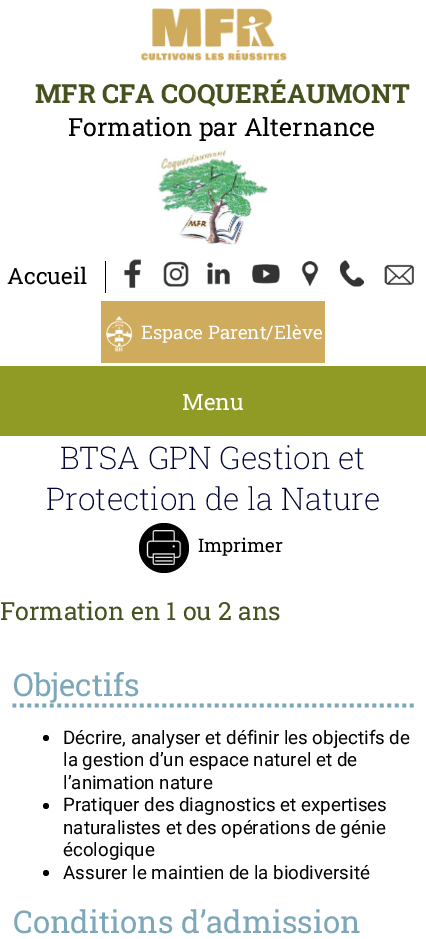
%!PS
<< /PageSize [426 939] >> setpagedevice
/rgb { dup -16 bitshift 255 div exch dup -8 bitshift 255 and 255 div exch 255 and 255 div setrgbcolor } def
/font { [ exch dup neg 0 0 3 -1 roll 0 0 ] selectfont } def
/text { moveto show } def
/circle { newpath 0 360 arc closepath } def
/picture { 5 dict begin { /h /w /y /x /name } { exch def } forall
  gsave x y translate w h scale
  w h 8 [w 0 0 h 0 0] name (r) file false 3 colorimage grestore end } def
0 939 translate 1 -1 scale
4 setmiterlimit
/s1 { /RobotoSlab-Bold 26.25 font 16#45521F rgb } def
/s2 { /RobotoSlab-Regular 25 font 16#000000 rgb } def
/s3 { /RobotoSlab-Regular 22.5 font 16#000000 rgb } def
/s4 { /RobotoSlab-Regular 18.75 font 16#FFFFFF rgb } def
/s5 { /RobotoSlab-Regular 22.5 font 16#FFFFFF rgb } def
/s6 { /RobotoSlab-ExtraLight 31.25 font 16#000333 rgb } def
/s7 { /RobotoSlab-Regular 18.75 font 16#000000 rgb } def
/s8 { /RobotoSlab-Regular 25 font 16#45521F rgb } def
/s9 { /RobotoSlab-Regular 31.25 font 16#7CA7B9 rgb } def
/s10 { /Roboto-Regular 18.75 font 16#000000 rgb } def
16#FFFFFF rgb
0 0 426 939 rectfill
(pic1.raw) 140 8 147 53 picture
s1
(MFR CFA COQUERÉAUMONT) 35 103 text
s2
(Formation par Alternance) 68 136 text
(pic2.raw) 157 148 112 97 picture
105 261 1 32 rectfill
s3
(Accueil) 7 284 text
(pic3.raw) 124 259 17 29 picture
(pic4.raw) 163 261 26 26 picture
(pic5.raw) 207 262 23 23 picture
(pic6.raw) 252 264 28 20 picture
(pic7.raw) 301 261 18 26 picture
(pic8.raw) 340 260 24 27 picture
(pic9.raw) 384 264 30 21 picture
16#CEAB5D rgb
101 301 224 62 rectfill
(pic10.raw) 106 316 27 36 picture
s4
(Espace Parent/Elève) 141 339 text
16#909B25 rgb
0 366 426 70 rectfill
s5
(Menu) 182 410 text
s6
(BTSA GPN Gestion et) 60 469 text
(Protection de la Nature) 46 510 text
16#000000 rgb
164 548 25 circle fill
(pic11.raw) 146 530 36 35 picture
s7
(Imprimer) 198 552 text
s8
(Formation en 1 ou 2 ans) 0 620 text
16#7CA7B9 rgb
3.8 setlinewidth
[3.75 3.75] 0 setdash
12.5 705.5 moveto 414 705.5 lineto stroke
s9
(Objectifs) 13 696 text
16#000000 rgb
46 738 3 circle fill
s10
(Décrire, analyser et définir les objectifs de) 63 744 text
(la gestion d’un espace naturel et de) 63 766 text
(l’animation nature) 63 789 text
46 806 3 circle fill
(Pratiquer des diagnostics et expertises) 63 811 text
(naturalistes et des opérations de génie) 63 834 text
(écologique) 63 856 text
46 873 3 circle fill
(Assurer le maintien de la biodiversité) 63 879 text
s9
(Conditions d’admission) 13 933 text
showpage
